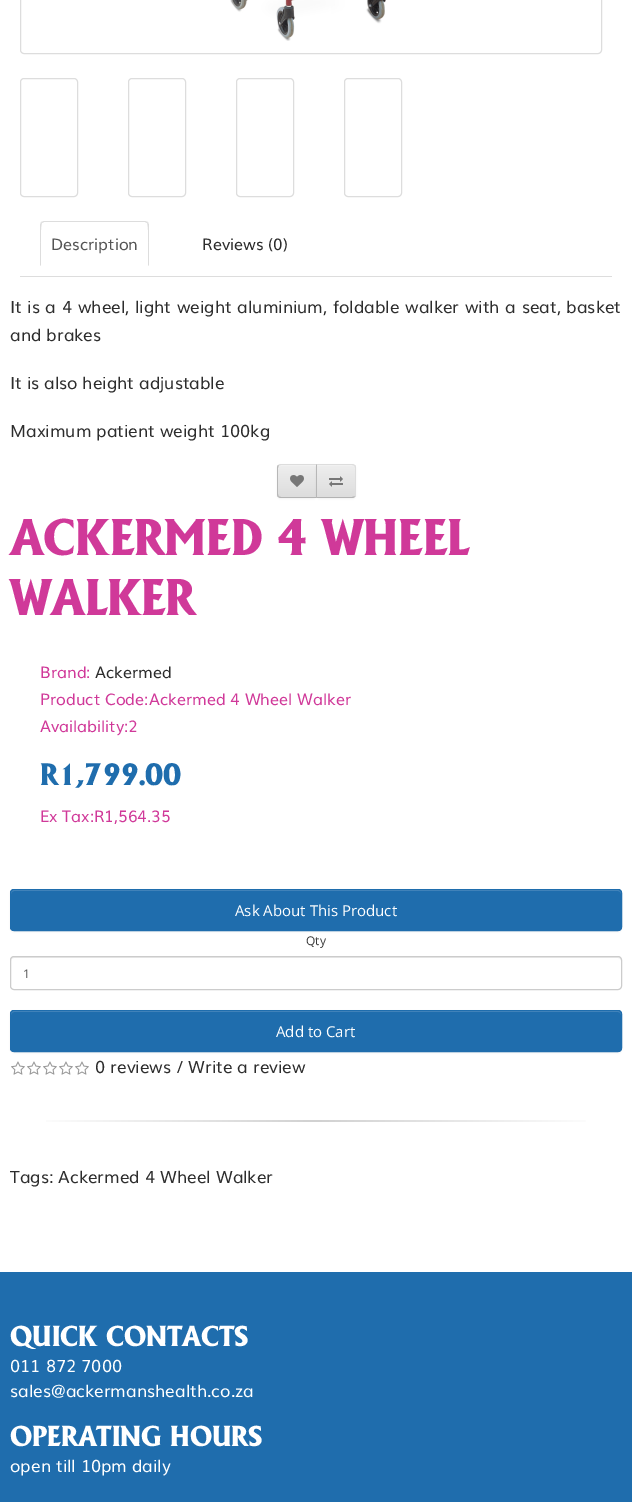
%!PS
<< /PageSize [632 1502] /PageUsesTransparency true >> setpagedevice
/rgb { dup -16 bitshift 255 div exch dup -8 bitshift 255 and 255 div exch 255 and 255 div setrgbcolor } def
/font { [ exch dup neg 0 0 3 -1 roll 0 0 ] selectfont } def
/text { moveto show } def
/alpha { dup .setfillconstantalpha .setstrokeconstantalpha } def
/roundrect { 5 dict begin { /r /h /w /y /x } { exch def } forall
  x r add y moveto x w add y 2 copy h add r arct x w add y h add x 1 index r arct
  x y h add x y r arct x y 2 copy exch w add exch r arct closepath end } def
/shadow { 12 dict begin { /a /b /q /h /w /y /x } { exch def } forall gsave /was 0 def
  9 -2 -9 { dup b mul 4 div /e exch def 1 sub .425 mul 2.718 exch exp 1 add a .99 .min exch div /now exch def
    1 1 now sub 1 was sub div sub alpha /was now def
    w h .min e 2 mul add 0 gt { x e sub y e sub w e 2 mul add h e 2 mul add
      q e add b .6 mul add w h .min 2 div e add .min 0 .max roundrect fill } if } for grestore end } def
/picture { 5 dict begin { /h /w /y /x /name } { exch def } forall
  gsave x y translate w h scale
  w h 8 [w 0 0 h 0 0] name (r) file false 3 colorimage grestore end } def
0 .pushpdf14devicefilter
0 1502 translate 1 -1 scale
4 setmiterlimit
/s1 { /Muli-Regular 16 font 16#555555 rgb } def
/s2 { /Muli-Regular 16 font 16#2D2D2D rgb } def
/s3 { /Muli-Regular 17 font 16#2D2D2D rgb } def
/s4 { /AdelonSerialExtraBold-ExtraBold 50 font 16#D03999 rgb } def
/s5 { /Muli-Regular 16 font 16#D03999 rgb } def
/s6 { /AdelonSerialExtraBold-ExtraBold 30 font 16#1F6DAD rgb } def
/s7 { /OpenSans-Regular 15 font 16#FFFFFF rgb } def
/s8 { /OpenSans-Regular 12 font 16#373737 rgb } def
/s9 { /OpenSans-Regular 12 font 16#555555 rgb } def
/s10 { /AdelonSerialExtraBold-ExtraBold 28 font 16#FFFFFF rgb } def
/s11 { /Muli-Regular 17 font 16#FFFFFF rgb } def
16#FFFFFF rgb
0 0 632 1502 rectfill
16#DDDDDD rgb
20.5 -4.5 581 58 3.5 roundrect stroke
(pic1.raw) 230 0 156 41 picture
20.5 78.5 57 118 3.5 roundrect stroke
128.5 78.5 57 118 3.5 roundrect stroke
236.5 78.5 57 118 3.5 roundrect stroke
344.5 78.5 57 118 3.5 roundrect stroke
20 276 592 1 rectfill
44 221 moveto 41 222 lineto 42 223 lineto 44 222 lineto 145 222 lineto 147 223 lineto 148 222 lineto 145 221 lineto closepath fill
149 266 moveto 149 225 lineto 149 224 148 223 148 222 curveto 147 223 lineto 149 225 148 260 148 265 curveto closepath fill
40 266 moveto 41 265 lineto 41 260 40 225 42 223 curveto 41 222 lineto 40 225 lineto closepath fill
s1
(Description) 51 250 text
s2
(Reviews \(0\)) 202 250 text
/Muli-Regular 17 font
10 313 moveto 0.75 0 32 (It is a 4 wheel, light weight aluminium, foldable walker with a seat, basket) widthshow
(and brakes) 10 341 text
(It is also height adjustable) 10 389 text
(Maximum patient weight 100kg) 10 437 text
16#000000 rgb
277 465 40 34 4 1 0.05 shadow
gsave
281 464 moveto 317 464 lineto 317 498 lineto 281 498 lineto 279 498 277 496 277 494 curveto 277 468 lineto 277 466 279 464 281 464 curveto closepath clip newpath
gsave 277 465 moveto 316 465 lineto 316 497 lineto 277 497 lineto closepath clip newpath
<< /ShadingType 2 /ColorSpace /DeviceRGB /Coords [297 465 297 497] /Extend [true true] /Function << /FunctionType 2 /Domain [0 1] /C0 [0.933 0.933 0.933] /C1 [0.867 0.867 0.867] /N 1 >> >> shfill grestore
grestore
16#F1F1F1 rgb
281 466 moveto 316 466 lineto 316 465 lineto 281 465 lineto 279.5 465 278 466.5 278 468 curveto 278 469 lineto 278 467 279 466 281 466 curveto closepath fill
16#DDDDDD rgb
281 464 moveto 280 464 279 464.5 278 465 curveto 279 466 lineto 279 465 280 465 281 465 curveto 316 465 lineto 317 464 lineto closepath fill
16#B3B3B3 rgb
317 498 moveto 316 497 lineto 281 497 lineto 280 497 279 497 279 496 curveto 278 497 lineto 279 497.5 280 498 281 498 curveto closepath fill
16#B7B7B7 rgb
277 468 moveto 277 494 lineto 277 495 277.5 496 278 497 curveto 279 496 lineto 278 496 278 495 278 494 curveto 278 468 lineto 278 467 278 466 279 466 curveto 278 465 lineto 277.5 466 277 467 277 468 curveto closepath fill
(pic2.raw) 290 475 14 12 picture
16#000000 rgb
316 465 40 34 4 1 0.05 shadow
gsave
316 464 moveto 352 464 lineto 354 464 356 466 356 468 curveto 356 494 lineto 356 496 354 498 352 498 curveto 316 498 lineto closepath clip newpath
gsave 317 465 moveto 356 465 lineto 356 497 lineto 317 497 lineto closepath clip newpath
<< /ShadingType 2 /ColorSpace /DeviceRGB /Coords [336 465 336 497] /Extend [true true] /Function << /FunctionType 2 /Domain [0 1] /C0 [0.933 0.933 0.933] /C1 [0.867 0.867 0.867] /N 1 >> >> shfill grestore
grestore
16#F1F1F1 rgb
317 466 moveto 352 466 lineto 354 466 355 467 355 469 curveto 355 468 lineto 355 466.5 353.5 465 352 465 curveto 317 465 lineto closepath fill
16#DDDDDD rgb
316 464 moveto 317 465 lineto 352 465 lineto 353 465 354 465 354 466 curveto 355 465 lineto 354 464.5 353 464 352 464 curveto closepath fill
356 494 moveto 356 468 lineto 356 467 355.5 466 355 465 curveto 354 466 lineto 355 466 355 467 355 468 curveto 355 494 lineto 355 495 355 496 354 496 curveto 355 497 lineto 355.5 496 356 495 356 494 curveto closepath fill
16#B3B3B3 rgb
352 498 moveto 353 498 354 497.5 355 497 curveto 354 496 lineto 354 497 353 497 352 497 curveto 317 497 lineto 316 498 lineto closepath fill
16#B7B7B7 rgb
316 464 moveto 316 498 lineto 317 497 lineto 317 465 lineto closepath fill
(pic3.raw) 329 476 14 11 picture
s4
(ACKERMED 4 WHEEL) 10 555 text
(WALKER) 10 615 text
s5
(Brand:) 40 678 text
s2
(Ackermed) 95 678 text
s5
(Product Code:Ackermed 4 Wheel Walker) 40 705 text
(Availability:2) 40 732 text
s6
(R1,799.00) 40 785 text
s5
(Ex Tax:R1,564.35) 40 822 text
16#000000 rgb
10 890 612 42 4 1 0.05 shadow
16#1F6DAD rgb
10 889 612 42 4 roundrect fill
16#4C8ABD rgb
14 891 moveto 618 891 lineto 620 891 621 892 621 894 curveto 621 893 lineto 621 891 620 890 618 890 curveto 14 890 lineto 12 890 11 891 11 893 curveto 11 894 lineto 11 892 12 891 14 891 curveto closepath fill
16#1F6DAD rgb
10.5 889.5 611 41 3.5 roundrect stroke
s7
(Ask About This Product) 235 916 text
s8
(Qty) 306 945 text
16#ECECEC rgb
14 958 moveto 618 958 lineto 620 958 621 959 621 961 curveto 621 960 lineto 621 958 620 957 618 957 curveto 14 957 lineto 12 957 11 958 11 960 curveto 11 961 lineto 11 959 12 958 14 958 curveto closepath fill
16#CCCCCC rgb
10.5 956.5 611 33 3.5 roundrect stroke
s9
(1) 23 978 text
16#000000 rgb
10 1011 612 42 4 1 0.05 shadow
16#1F6DAD rgb
10 1010 612 42 4 roundrect fill
16#4C8ABD rgb
14 1012 moveto 618 1012 lineto 620 1012 621 1013 621 1015 curveto 621 1014 lineto 621 1012 620 1011 618 1011 curveto 14 1011 lineto 12 1011 11 1012 11 1014 curveto 11 1015 lineto 11 1013 12 1012 14 1012 curveto closepath fill
16#1F6DAD rgb
10.5 1010.5 611 41 3.5 roundrect stroke
s7
(Add to Cart) 276 1037 text
(pic4.raw) 11 1061 14 14 picture
(pic4.raw) 27 1061 14 14 picture
(pic4.raw) 43 1061 14 14 picture
(pic4.raw) 59 1061 14 14 picture
(pic4.raw) 75 1061 14 14 picture
s3
(0 reviews / Write a review) 95 1073 text
gsave 46 1120 moveto 586 1120 lineto 586 1122 lineto 46 1122 lineto closepath clip newpath
<< /ShadingType 2 /ColorSpace /DeviceRGB /Coords [30 1121 602 1121] /Extend [true true] /Function << /FunctionType 3 /Domain [0 1] /Functions [<< /FunctionType 2 /Domain [0 1] /C0 [1 1 1] /C1 [0.82 0.82 0.82] /N 1 >> << /FunctionType 2 /Domain [0 1] /C0 [0.82 0.82 0.82] /C1 [1 1 1] /N 1 >>] /Bounds [0.5] /Encode [0 1 0 1] >> >> shfill grestore
(Tags: Ackermed 4 Wheel Walker) 10 1183 text
16#1F6DAD rgb
0 1272 632 230 rectfill
s10
(QUICK CONTACTS) 10 1346 text
s11
(011 872 7000) 10 1372 text
(sales@ackermanshealth.co.za) 10 1397 text
s10
(OPERATING HOURS) 10 1446 text
s11
(open till 10pm daily) 10 1472 text
.poppdf14devicefilter showpage
